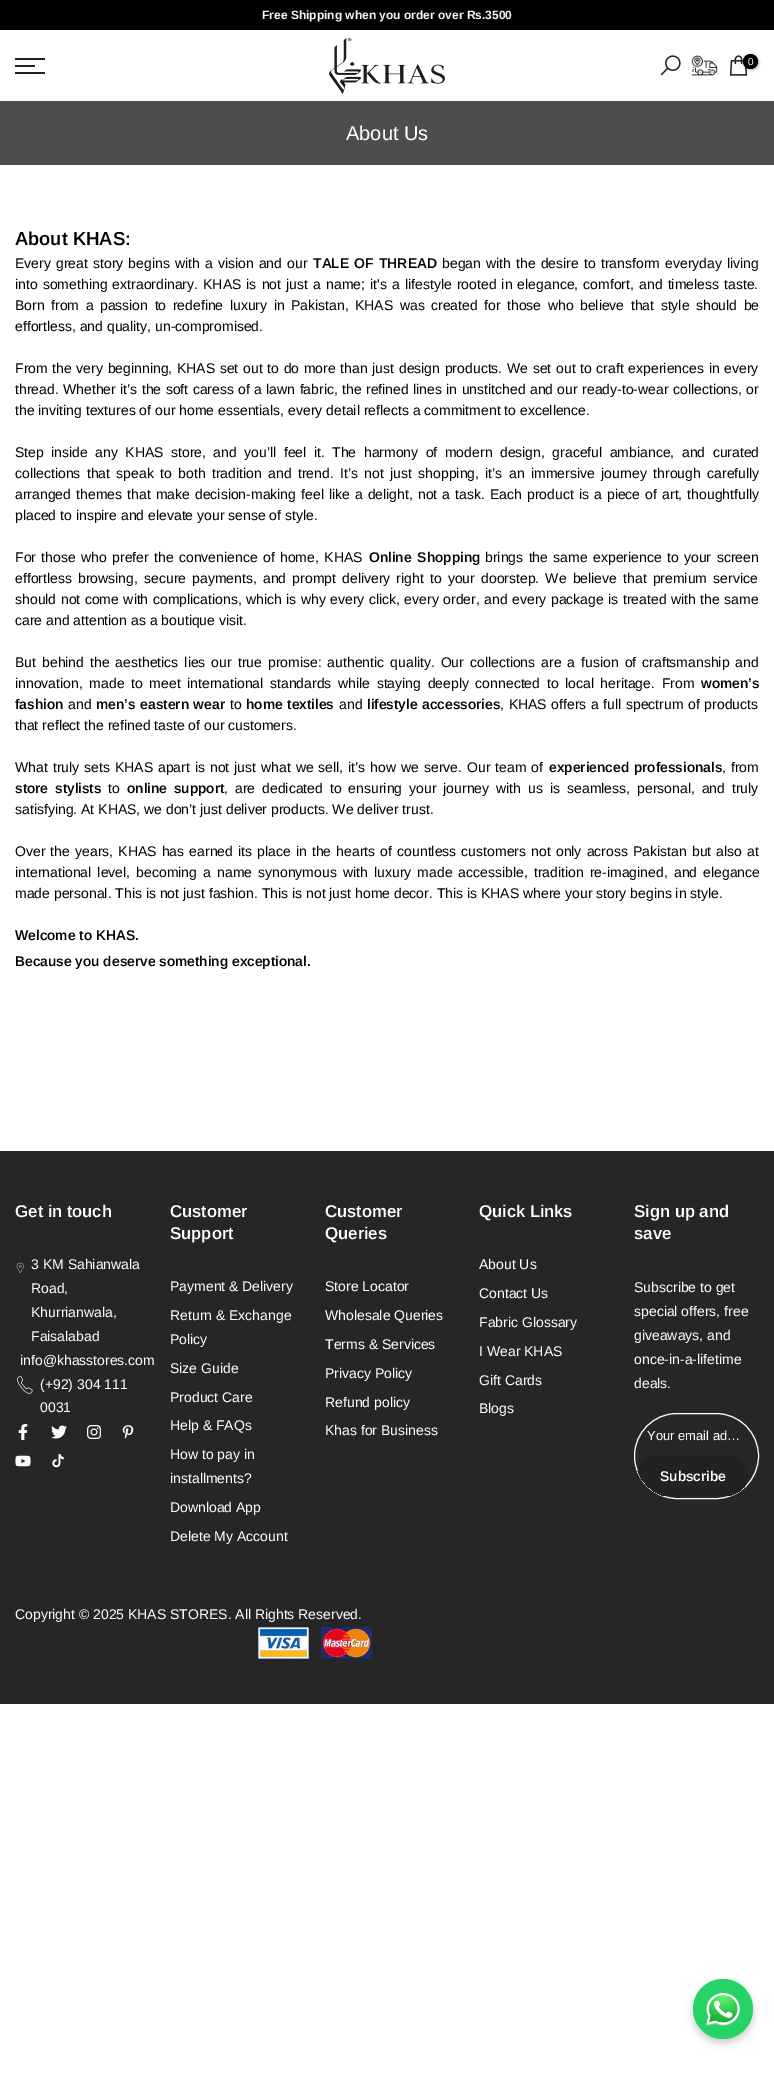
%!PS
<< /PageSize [774 2100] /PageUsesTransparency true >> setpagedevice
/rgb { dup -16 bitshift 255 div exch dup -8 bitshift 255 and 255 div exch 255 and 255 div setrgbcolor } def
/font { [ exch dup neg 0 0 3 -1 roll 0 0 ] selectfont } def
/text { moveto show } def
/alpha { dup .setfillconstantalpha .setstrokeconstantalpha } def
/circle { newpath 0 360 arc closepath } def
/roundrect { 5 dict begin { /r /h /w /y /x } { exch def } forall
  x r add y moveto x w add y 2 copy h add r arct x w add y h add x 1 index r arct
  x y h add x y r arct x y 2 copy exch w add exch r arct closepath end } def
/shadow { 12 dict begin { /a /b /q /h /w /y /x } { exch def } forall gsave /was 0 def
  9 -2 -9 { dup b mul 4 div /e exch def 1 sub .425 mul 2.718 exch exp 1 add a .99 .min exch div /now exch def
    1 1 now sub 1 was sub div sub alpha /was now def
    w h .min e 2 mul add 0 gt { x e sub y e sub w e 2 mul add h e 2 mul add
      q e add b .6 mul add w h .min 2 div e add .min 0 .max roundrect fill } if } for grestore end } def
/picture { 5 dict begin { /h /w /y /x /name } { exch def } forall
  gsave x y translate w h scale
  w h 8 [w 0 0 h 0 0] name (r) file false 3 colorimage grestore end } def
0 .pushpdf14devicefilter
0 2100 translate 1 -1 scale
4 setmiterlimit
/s1 { /Arimo-Bold 12 font 16#F5F5F5 rgb } def
/s2 { /Arimo-Regular 10 font 16#FFFFFF rgb } def
/s3 { /Arimo-Regular 20 font 16#FFFFFF rgb } def
/s4 { /Arimo-SemiBold 18.75 font 16#000000 rgb } def
/s5 { /Arimo-Regular 14 font 16#000000 rgb } def
/s6 { /Arimo-SemiBold 14 font 16#000000 rgb } def
/s7 { /Arimo-SemiBold 17 font 16#FFFFFF rgb } def
/s8 { /Arimo-Regular 14 font 16#FFFFFF rgb } def
/s9 { /Arimo-Regular 13 font 16#FFFFFF rgb } def
/s10 { /Arimo-SemiBold 14 font 16#FFFFFF rgb } def
16#FFFFFF rgb
0 0 774 2100 rectfill
16#000000 rgb
0 0 774 30 rectfill
s1
(Free Shipping when you order over Rs.3500) 262 19 text
16#222222 rgb
15 58 30 2 rectfill
15 65 20 2 rectfill
15 72 30 2 rectfill
(pic1.raw) 329 38 116 56 picture
(pic2.raw) 660 55 21 21 picture
(pic3.raw) 691 55 27 21 picture
(pic4.raw) 729 55 19 21 picture
16#000000 rgb
744 55 15 15 7.5 1.5 0.3 shadow
750.5 61.5 7.5 circle fill
s2
(0) 748 65 text
16#4D4D4D rgb
0 101 774 64 rectfill
s3
(About Us) 346 140 text
s4
(About KHAS:) 15 245 text
/Arimo-Regular 14 font
15 268 moveto 1.25 0 32 (Every great story begins with a vision and our) widthshow
/Arimo-SemiBold 14 font
313 268 moveto 1.25 0 32 (TALE OF THREAD) widthshow
/Arimo-Regular 14 font
442 268 moveto 1.25 0 32 (began with the desire to transform everyday living) widthshow
15 289 moveto 1.25 0 32 (into something extraordinary. KHAS is not just a name; it's a lifestyle rooted in elegance, comfort, and timeless taste.) widthshow
15 310 moveto 2.6 0 32 (Born from a passion to redefine luxury in Pakistan, KHAS was created for those who believe that style should be) widthshow
(effortless, and quality, un-compromised.) 15 331 text
15 373 moveto 0.8 0 32 (From the very beginning, KHAS set out to do more than just design products. We set out to craft experiences in every) widthshow
15 394 moveto 0.5 0 32 (thread. Whether it’s the soft caress of a lawn fabric, the refined lines in unstitched and our ready-to-wear collections, or) widthshow
(the inviting textures of our home essentials, every detail reflects a commitment to excellence.) 15 415 text
15 457 moveto 3.6 0 32 (Step inside any KHAS store, and you’ll feel it. The harmony of modern design, graceful ambiance, and curated) widthshow
15 478 moveto 2.5 0 32 (collections that speak to both tradition and trend. It’s not just shopping, it’s an immersive journey through carefully) widthshow
15 499 moveto 1.2 0 32 (arranged themes that make decision-making feel like a delight, not a task. Each product is a piece of art, thoughtfully) widthshow
(placed to inspire and elevate your sense of style.) 15 520 text
15 562 moveto 1.5 0 32 (For those who prefer the convenience of home, KHAS) widthshow
/Arimo-SemiBold 14 font
369 562 moveto 2 0 32 (Online Shopping) widthshow
/Arimo-Regular 14 font
485 562 moveto 1.5 0 32 (brings the same experience to your screen) widthshow
15 583 moveto 2.25 0 32 (effortless browsing, secure payments, and prompt delivery right to your doorstep. We believe that premium service) widthshow
15 604 moveto 0.6 0 32 (should not come with complications, which is why every click, every order, and every package is treated with the same) widthshow
(care and attention as a boutique visit.) 15 625 text
15 667 moveto 2.1 0 32 (But behind the aesthetics lies our true promise: authentic quality. Our collections are a fusion of craftsmanship and) widthshow
15 688 moveto 2.75 0 32 (innovation, made to meet international standards while staying deeply connected to local heritage. From) widthshow
s6
(women’s) 701 688 text
(fashion) 15 709 text
s5
(and) 68 709 text
/Arimo-SemiBold 14 font
96 709 moveto 0.75 0 32 (men’s eastern wear) widthshow
s5
(to) 230 709 text
/Arimo-SemiBold 14 font
246 709 moveto 0.75 0 32 (home textiles) widthshow
s5
(and) 339 709 text
/Arimo-SemiBold 14 font
367 709 moveto 0.75 0 32 (lifestyle accessories) widthshow
/Arimo-Regular 14 font
500 709 moveto 0.75 0 32 (, KHAS offers a full spectrum of products) widthshow
(that reflect the refined taste of our customers.) 15 730 text
15 772 moveto 1.1 0 32 (What truly sets KHAS apart is not just what we sell, it’s how we serve. Our team of) widthshow
/Arimo-SemiBold 14 font
549 772 moveto 1.1 0 32 (experienced professionals) widthshow
/Arimo-Regular 14 font
722 772 moveto 1.1 0 32 (, from) widthshow
/Arimo-SemiBold 14 font
15 793 moveto 3.1 0 32 (store stylists) widthshow
s5
(to) 108 793 text
/Arimo-SemiBold 14 font
127 793 moveto 3.1 0 32 (online support) widthshow
/Arimo-Regular 14 font
224 793 moveto 3.1 0 32 (, are dedicated to ensuring your journey with us is seamless, personal, and truly) widthshow
(satisfying. At KHAS, we don’t just deliver products. We deliver trust.) 15 814 text
15 856 moveto 1.25 0 32 (Over the years, KHAS has earned its place in the hearts of countless customers not only across Pakistan but also at) widthshow
15 877 moveto 2.25 0 32 (international level, becoming a name synonymous with luxury made accessible, tradition re-imagined, and elegance) widthshow
(made personal. This is not just fashion. This is not just home decor. This is KHAS where your story begins in style.) 15 898 text
s6
(Welcome to KHAS.) 15 940 text
(Because you deserve something exceptional.) 15 966 text
16#262626 rgb
0 1151 774 553 rectfill
s7
(Get in touch) 15 1217 text
(pic5.raw) 16 1262 8 12 picture
s8
(3 KM Sahianwala) 31 1269 text
(Road,) 31 1293 text
(Khurrianwala,) 31 1317 text
(Faisalabad) 31 1341 text
(info@khasstores.com) 20 1365 text
(pic6.raw) 17 1376 16 18 picture
(\(+92\) 304 111) 40 1389 text
(0031) 40 1412 text
(pic7.raw) 18 1424 10 16 picture
(pic8.raw) 51 1425 16 14 picture
(pic9.raw) 87 1425 14 14 picture
(pic10.raw) 122 1425 12 14 picture
(pic11.raw) 15 1455 16 12 picture
(pic12.raw) 52 1454 12 14 picture
s7
(Customer) 170 1217 text
(Support) 170 1239 text
s8
(Payment & Delivery) 170 1291 text
(Return & Exchange) 170 1320 text
(Policy) 170 1344 text
(Size Guide) 170 1373 text
(Product Care) 170 1402 text
(Help & FAQs) 170 1430 text
(How to pay in) 170 1459 text
(installments?) 170 1483 text
(Download App) 170 1512 text
(Delete My Account) 170 1541 text
s7
(Customer) 325 1217 text
(Queries) 325 1239 text
s8
(Store Locator) 325 1291 text
(Wholesale Queries) 325 1320 text
(Terms & Services) 325 1349 text
(Privacy Policy) 325 1378 text
(Refund policy) 325 1407 text
(Khas for Business) 325 1435 text
s7
(Quick Links) 479 1217 text
s8
(About Us) 479 1269 text
(Contact Us) 479 1298 text
(Fabric Glossary) 479 1327 text
(I Wear KHAS) 479 1356 text
(Gift Cards) 479 1385 text
(Blogs) 479 1413 text
s7
(Sign up and) 634 1217 text
(save) 634 1239 text
s8
(Subscribe to get) 634 1292 text
(special offers, free) 634 1316 text
(giveaways, and) 634 1340 text
(once-in-a-lifetime) 634 1364 text
(deals.) 634 1388 text
634.5 1413.5 124 85 42.5 roundrect stroke
s9
(Your email ad…) 647 1440 text
gsave
635 1414 123 84 42 roundrect clip newpath
16#222222 rgb
637 1456 111 40 20 roundrect fill
grestore
s10
(Subscribe) 660 1481 text
s8
(Copyright © 2025 KHAS STORES. All Rights Reserved.) 15 1619 text
(pic13.raw) 258 1627 114 32 picture
16#000000 rgb
693 1983 60 60 30 4 0.2 shadow
16#25D366 rgb
723 2009 30 circle fill
(pic14.raw) 706 1992 34 34 picture
.poppdf14devicefilter showpage
